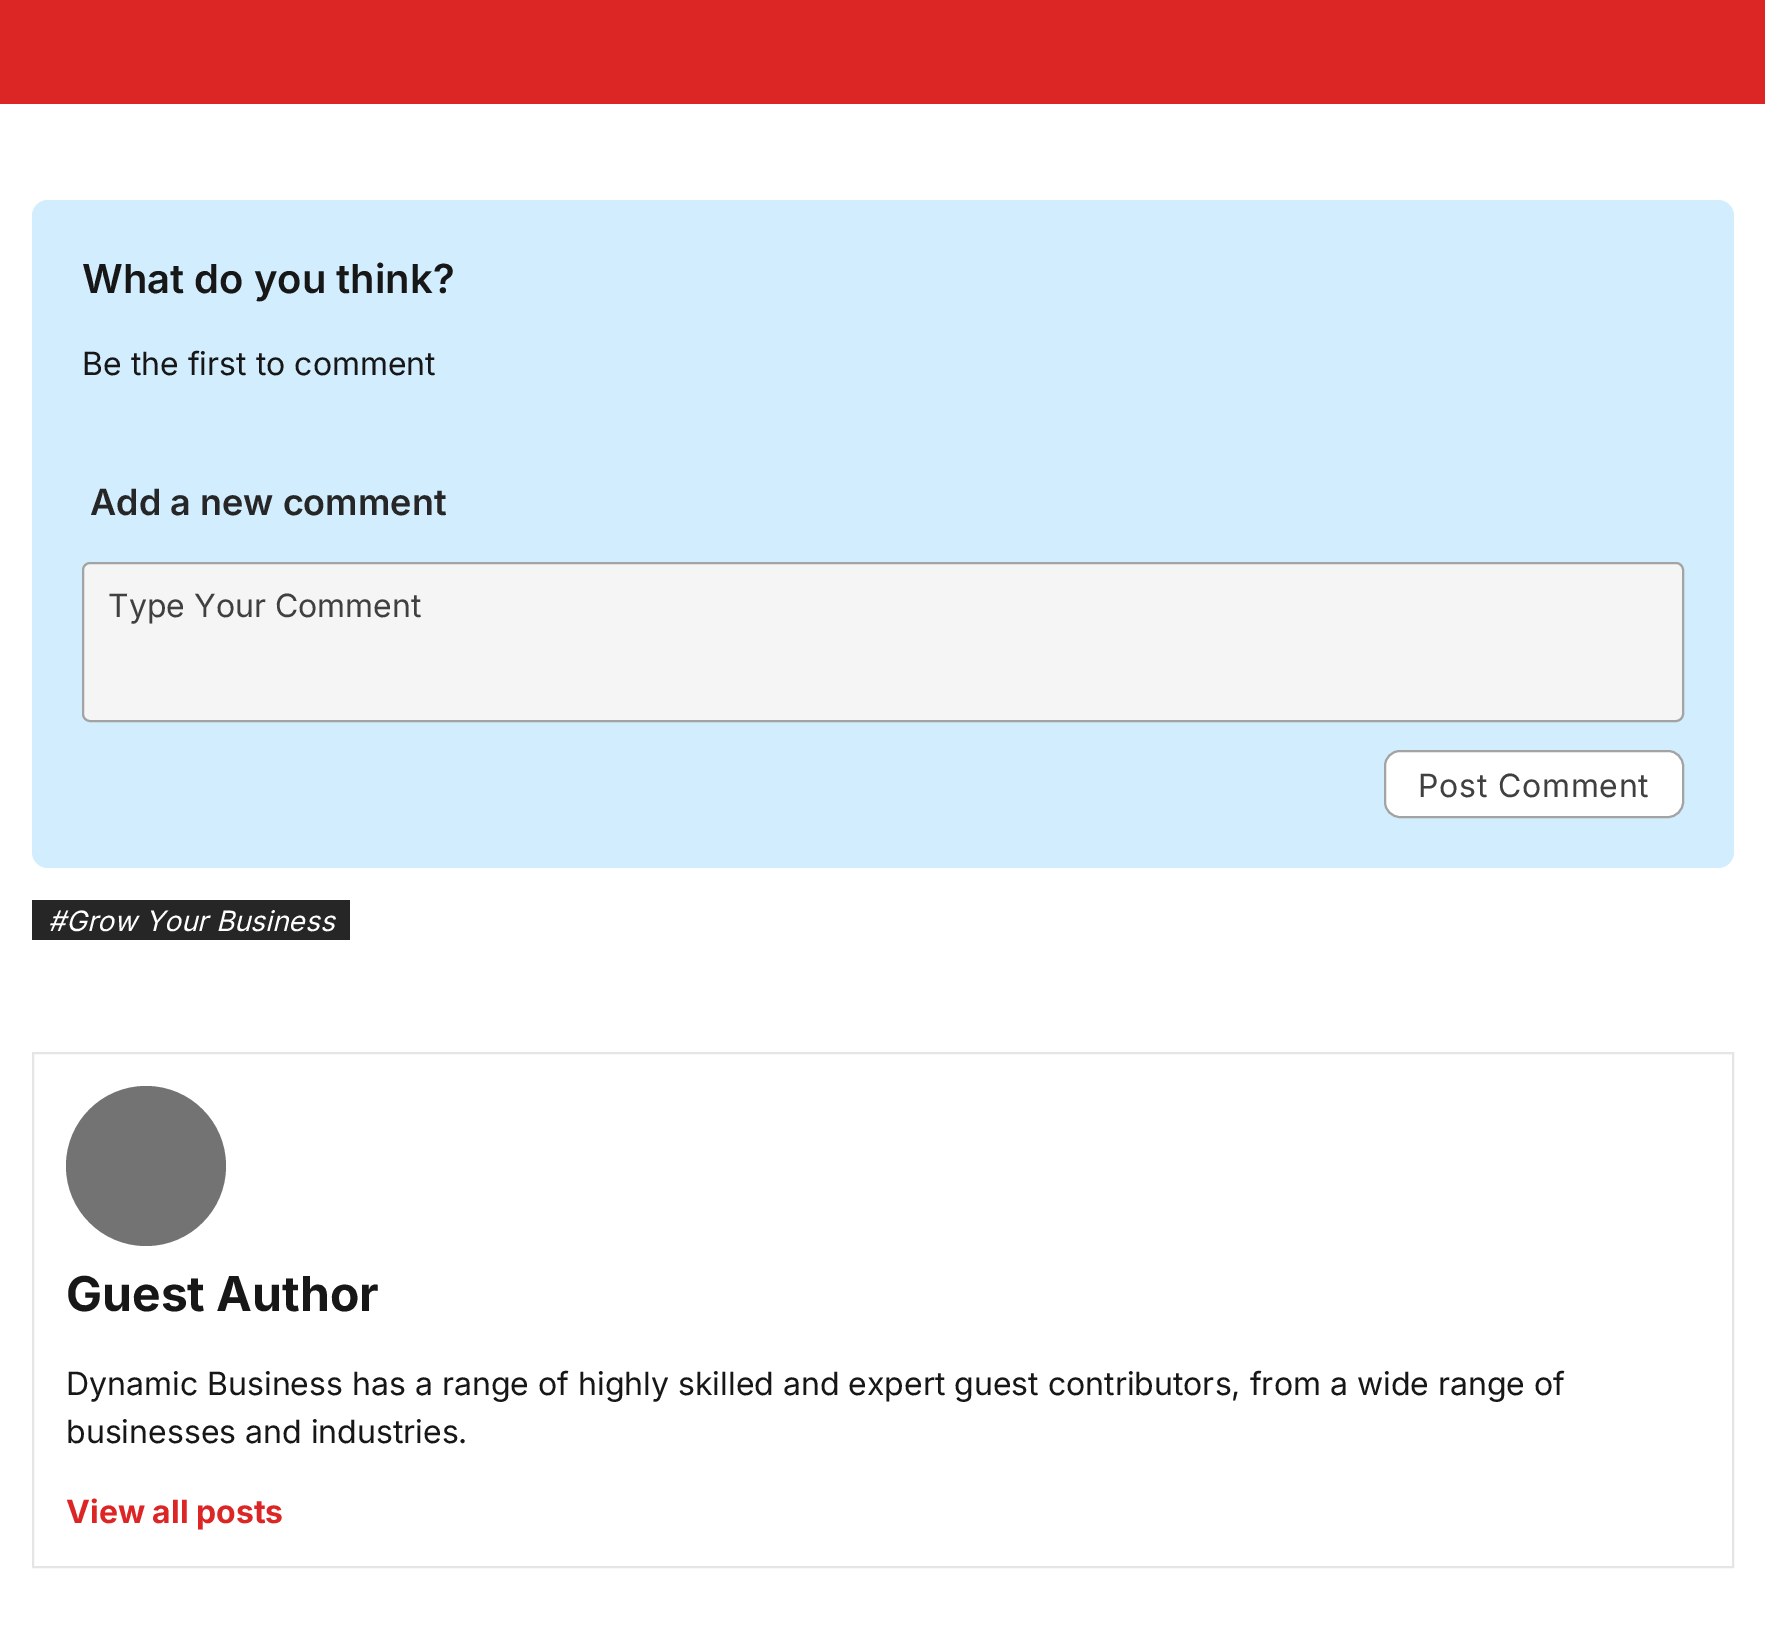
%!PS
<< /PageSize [1765 1639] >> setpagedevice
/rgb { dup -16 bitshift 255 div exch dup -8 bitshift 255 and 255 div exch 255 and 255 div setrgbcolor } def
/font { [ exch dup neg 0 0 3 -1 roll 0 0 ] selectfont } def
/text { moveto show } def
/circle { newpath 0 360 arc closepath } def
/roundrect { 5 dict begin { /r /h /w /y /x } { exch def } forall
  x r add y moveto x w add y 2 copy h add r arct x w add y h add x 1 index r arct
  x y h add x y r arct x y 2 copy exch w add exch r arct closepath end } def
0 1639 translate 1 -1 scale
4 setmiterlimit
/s1 { /Inter-SemiBold 40 font 16#171717 rgb } def
/s2 { /Inter-Regular 32 font 16#171717 rgb } def
/s3 { /Inter-SemiBold 36 font 16#262626 rgb } def
/s4 { /Inter-Regular 32 font 16#404040 rgb } def
/s5 { /Inter-Italic 28 font 16#FFFFFF rgb } def
/s6 { /Inter-Bold 48 font 16#171717 rgb } def
/s7 { /Inter-Bold 32 font 16#DC2626 rgb } def
16#FFFFFF rgb
0 0 1765 1639 rectfill
16#DC2626 rgb
0 0 1765 104 rectfill
16#D2EDFE rgb
32 200 1702 668 16 roundrect fill
s1
(What do you think?) 82 293 text
s2
(Be the first to comment) 82 375 text
s3
(Add a new comment) 90 515 text
16#F5F5F5 rgb
83 563 1600 158 7 roundrect gsave fill grestore
16#A3A3A3 rgb
2 setlinewidth
stroke
s4
(Type Your Comment) 108 617 text
16#FFFFFF rgb
1385 751 298 66 15 roundrect gsave fill grestore
16#A3A3A3 rgb
stroke
16#404040 rgb
1418 797 moveto 0.75 0 (Post Comment) ashow
16#262626 rgb
32 900 318 40 rectfill
s5
(#Grow Your Business) 48 931 text
16#E5E5E5 rgb
33 1053 1700 514 rectstroke
16#737373 rgb
146 1166 80 circle fill
s6
(Guest Author) 66 1311 text
s2
(Dynamic Business has a range of highly skilled and expert guest contributors, from a wide range of) 66 1395 text
(businesses and industries.) 66 1443 text
s7
(View all posts) 66 1523 text
showpage
